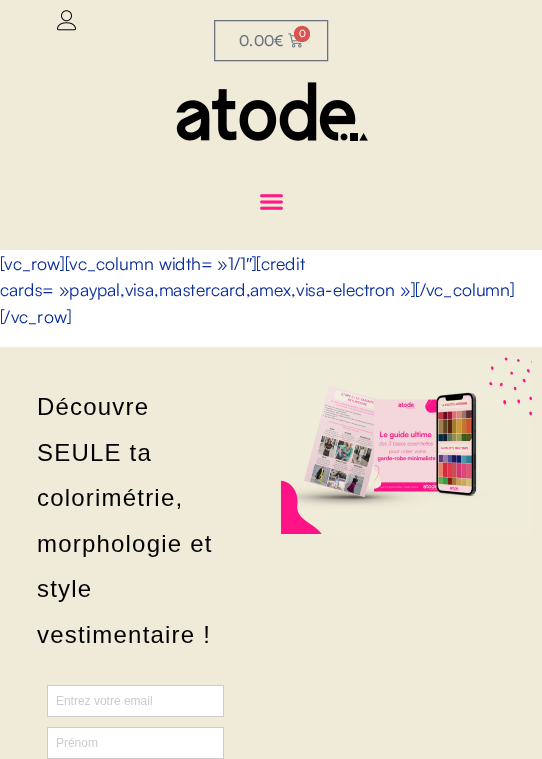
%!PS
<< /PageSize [542 759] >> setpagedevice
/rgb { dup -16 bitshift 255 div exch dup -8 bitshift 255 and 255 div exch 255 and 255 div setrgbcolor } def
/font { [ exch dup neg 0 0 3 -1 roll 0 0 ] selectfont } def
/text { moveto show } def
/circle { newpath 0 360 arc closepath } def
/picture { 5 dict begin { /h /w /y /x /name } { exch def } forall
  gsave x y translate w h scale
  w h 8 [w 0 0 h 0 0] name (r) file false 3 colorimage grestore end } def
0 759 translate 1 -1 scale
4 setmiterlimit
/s1 { /Satoshi-Medium 15 font 16#69727D rgb } def
/s2 { /Satoshi-Medium 10 font 16#FFFFFF rgb } def
/s3 { /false-Regular 17.6 font 16#0A2E99 rgb } def
/s4 { /LiberationSans-Regular 17.6 font 16#0A2E99 rgb } def
16#FFFFFF rgb
0 0 542 759 rectfill
16#F0EBD9 rgb
0 0 542 250 rectfill
(pic1.raw) 57 10 19 21 picture
16#69727D rgb
214.5 20.5 113 40 rectstroke
s1
(0.00€) 239 46 text
(pic2.raw) 288 33 14 15 picture
16#D9534F rgb
302 34 8 circle fill
s2
(0) 299 37 text
(pic3.raw) 176 82 192 59 picture
(pic4.raw) 260 194 23 16 picture
s3
([vc_row][vc_column width= »1/1) 0 270 text
s4
(″) 246 270 text
s3
(][credit) 252 270 text
(cards= »paypal,visa,mastercard,amex,visa-electron »][/vc_column]) 0 296 text
([/vc_row]) 0 323 text
(pic5.raw) 0 347 542 412 picture
showpage
